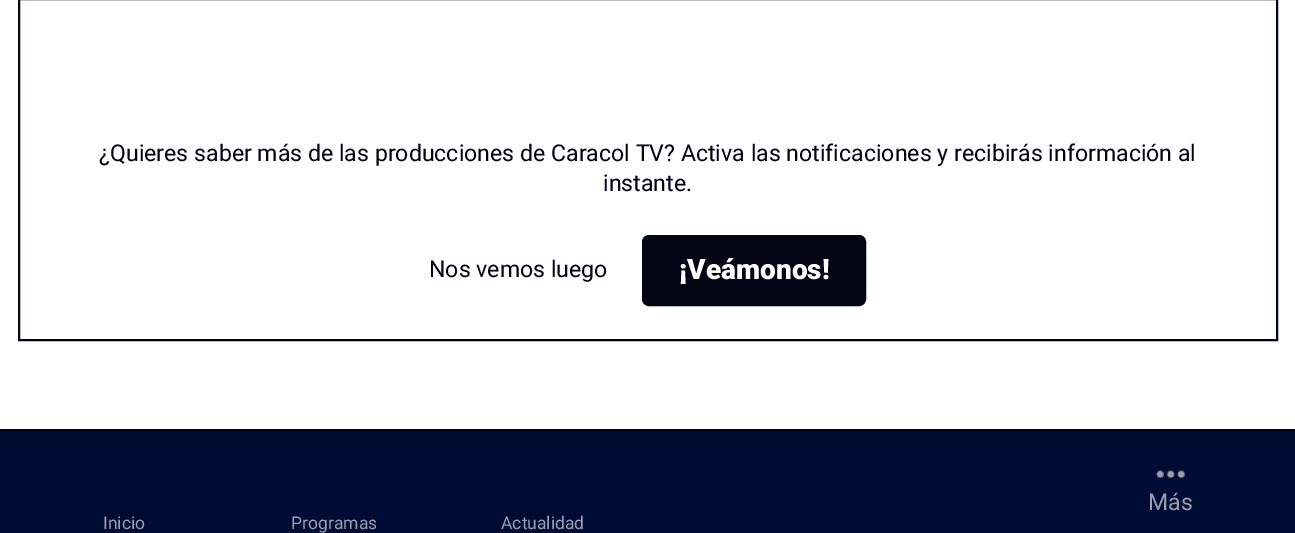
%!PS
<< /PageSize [1295 533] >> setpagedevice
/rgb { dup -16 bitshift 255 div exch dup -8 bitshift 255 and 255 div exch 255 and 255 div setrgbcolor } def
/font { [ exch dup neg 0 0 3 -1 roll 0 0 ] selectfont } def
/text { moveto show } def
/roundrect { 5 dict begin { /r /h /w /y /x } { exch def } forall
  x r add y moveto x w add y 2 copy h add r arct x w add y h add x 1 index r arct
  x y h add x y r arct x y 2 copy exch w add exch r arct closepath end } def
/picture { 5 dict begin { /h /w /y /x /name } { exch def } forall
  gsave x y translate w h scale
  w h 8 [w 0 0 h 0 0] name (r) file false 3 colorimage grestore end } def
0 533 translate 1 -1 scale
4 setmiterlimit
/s1 { /Roboto-Regular 23.1 font 16#000413 rgb } def
/s2 { /Roboto-Black 28 font 16#FFFFFF rgb } def
/s3 { /Roboto-Regular 23.1 font 16#999EAD rgb } def
/s4 { /Roboto-Regular 17.5 font 16#999EAD rgb } def
16#FFFFFF rgb
0 0 1295 533 rectfill
16#000413 rgb
2 setlinewidth
19 -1 1258 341 rectstroke
s1
(¿Quieres saber más de las producciones de Caracol TV? Activa las notificaciones y recibirás información al) 99 161 text
(instante.) 603 191 text
(Nos vemos luego) 429 277 text
643 236 222 69 6 roundrect gsave fill grestore
stroke
s2
(¡Veámonos!) 679 279 text
16#000C33 rgb
0 431 1295 102 rectfill
16#000413 rgb
0 429 1295 2 rectfill
(pic1.raw) 1156 470 29 9 picture
s3
(Más) 1148 510 text
s4
(Inicio) 103 529 text
(Programas) 291 529 text
(Actualidad) 501 529 text
showpage
